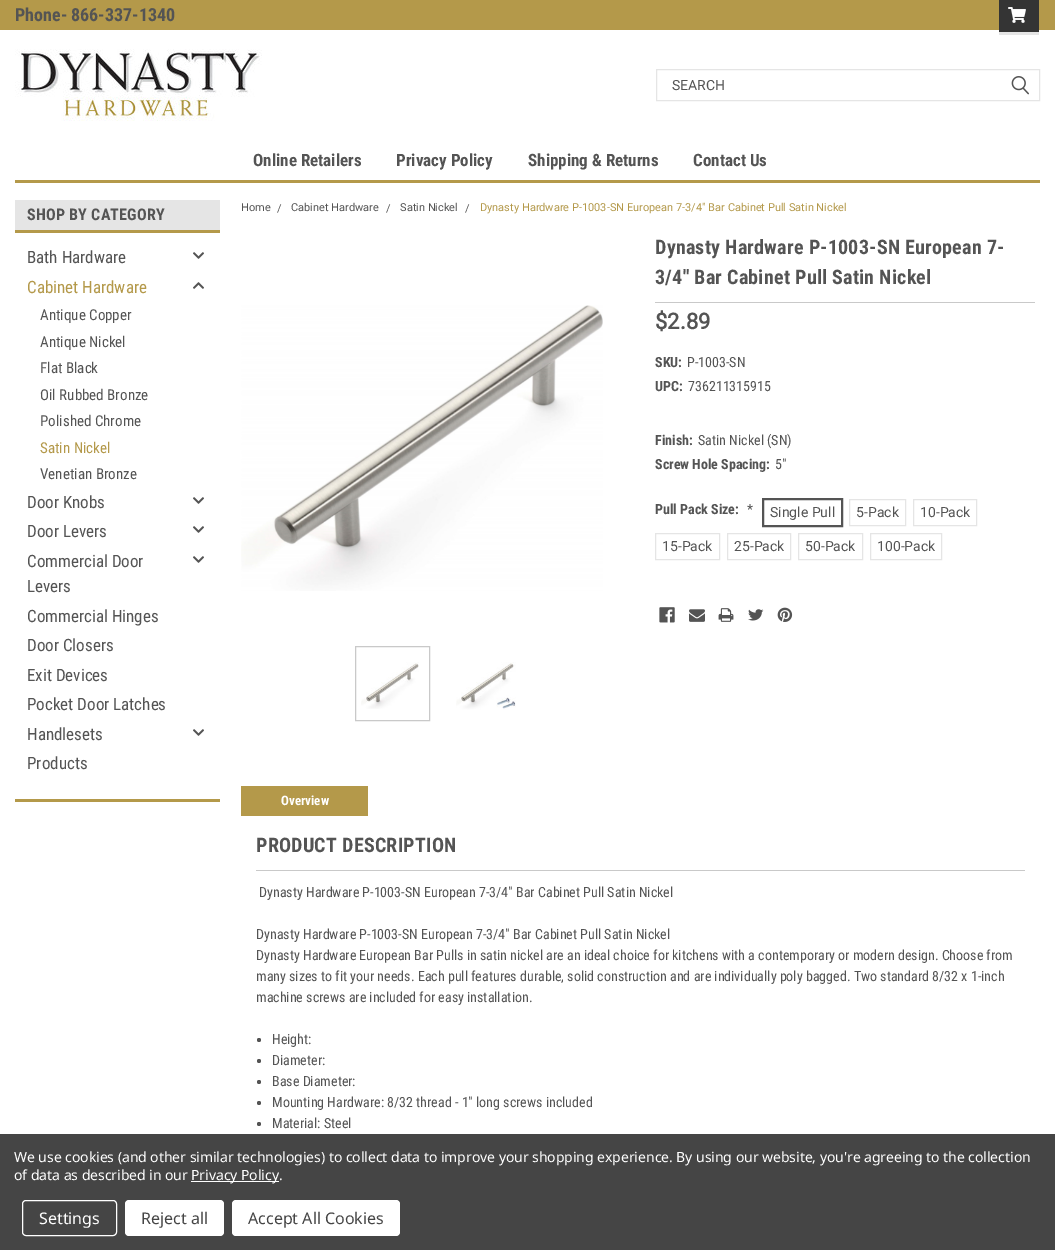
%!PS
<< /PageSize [1055 1250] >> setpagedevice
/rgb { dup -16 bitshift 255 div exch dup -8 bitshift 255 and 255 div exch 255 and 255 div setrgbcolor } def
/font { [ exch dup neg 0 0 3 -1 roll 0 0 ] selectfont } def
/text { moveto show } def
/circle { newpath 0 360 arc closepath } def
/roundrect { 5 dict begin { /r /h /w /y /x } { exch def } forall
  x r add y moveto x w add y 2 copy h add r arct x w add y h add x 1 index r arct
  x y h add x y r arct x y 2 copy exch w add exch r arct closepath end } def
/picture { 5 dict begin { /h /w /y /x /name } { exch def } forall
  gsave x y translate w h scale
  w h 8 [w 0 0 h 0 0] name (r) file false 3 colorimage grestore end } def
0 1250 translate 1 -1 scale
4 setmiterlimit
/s1 { /RobotoCondensed-Bold 18 font 16#545454 rgb } def
/s2 { /Roboto-Regular 14 font 16#545454 rgb } def
/s3 { /RobotoCondensed-Bold 17 font 16#545454 rgb } def
/s4 { /RobotoCondensed-Regular 17 font 16#545454 rgb } def
/s5 { /RobotoCondensed-Regular 17 font 16#B4994A rgb } def
/s6 { /RobotoCondensed-Regular 15 font 16#545454 rgb } def
/s7 { /RobotoCondensed-Regular 15 font 16#B4994A rgb } def
/s8 { /Roboto-Regular 11 font 16#545454 rgb } def
/s9 { /Roboto-Regular 11 font 16#B4994A rgb } def
/s10 { /Roboto-Bold 22 font 16#545454 rgb } def
/s11 { /RobotoCondensed-Bold 14 font 16#545454 rgb } def
/s12 { /RobotoCondensed-Regular 14 font 16#545454 rgb } def
/s13 { /RobotoCondensed-Bold 13 font 16#FFFFFF rgb } def
/s14 { /NotoSans-Regular 16 font 16#FFFFFF rgb } def
/s15 { /NotoSans-Regular 16 font 16#454545 rgb } def
16#FFFFFF rgb
0 0 1055 1250 rectfill
16#B4994A rgb
0 0 1055 30 rectfill
s1
(Phone- 866-337-1340) 15 21 text
16#343434 rgb
999 0 40 32 rectfill
16#E5E5E5 rgb
999 32 40 3 rectfill
(pic1.raw) 1008 7 18 16 picture
(pic2.raw) 15 49 247 72 picture
656.5 69.5 383 31 rectstroke
s2
(SEARCH) 672 90 text
(pic3.raw) 1011 76 18 19 picture
16#B4994A rgb
15 180 1025 3 rectfill
s3
(Online Retailers) 253 166 text
(Privacy Policy) 396 166 text
(Shipping & Returns) 528 166 text
(Contact Us) 693 166 text
16#B4994A rgb
15 799 205 3 rectfill
16#E5E5E5 rgb
15 200 205 30 rectfill
16#B4994A rgb
15 230 205 3 rectfill
/RobotoCondensed-Bold 16 font
16#545454 rgb
27 220 moveto 0.25 0 (SHOP BY CATEGORY) ashow
s4
(Bath Hardware) 27 263 text
(pic4.raw) 193 252 11 7 picture
s5
(Cabinet Hardware) 27 293 text
(pic5.raw) 193 282 11 7 picture
s6
(Antique Copper) 40 320 text
(Antique Nickel) 40 347 text
(Flat Black) 40 373 text
(Oil Rubbed Bronze) 40 400 text
(Polished Chrome) 40 426 text
s7
(Satin Nickel) 40 453 text
s6
(Venetian Bronze) 40 479 text
s4
(Door Knobs) 27 508 text
(pic4.raw) 193 497 11 7 picture
(Door Levers) 27 537 text
(pic4.raw) 193 526 11 7 picture
(Commercial Door) 27 567 text
(Levers) 27 592 text
(pic4.raw) 193 556 11 7 picture
(Commercial Hinges) 27 622 text
(Door Closers) 27 651 text
(Exit Devices) 27 681 text
(Pocket Door Latches) 27 710 text
(Handlesets) 27 740 text
(pic4.raw) 193 729 11 7 picture
(Products) 27 769 text
s8
(Home) 241 211 text
(/) 277 212 text
(Cabinet Hardware) 291 211 text
(/) 386 212 text
(Satin Nickel) 400 211 text
(/) 465 212 text
s9
(Dynasty Hardware P-1003-SN European 7-3/4" Bar Cabinet Pull Satin Nickel) 480 211 text
(pic6.raw) 241 305 362 286 picture
16#C9C9C9 rgb
355.5 646.5 74 74 rectstroke
(pic7.raw) 361 662 58 47 picture
(pic8.raw) 456 662 60 48 picture
655 302 380 1 rectfill
/RobotoCondensed-Bold 20 font
16#545454 rgb
655 254 moveto 0.25 0 (Dynasty Hardware P-1003-SN European 7-) ashow
655 284 moveto 0.25 0 (3/4" Bar Cabinet Pull Satin Nickel) ashow
s10
($2.89) 655 329 text
s11
(SKU:) 655 367 text
s12
(P-1003-SN) 687 367 text
s11
(UPC:) 655 391 text
s12
(736211315915) 688 391 text
s11
(Finish:) 655 445 text
s12
(Satin Nickel \(SN\)) 698 445 text
s11
(Screw Hole Spacing:) 655 469 text
s12
(5") 775 469 text
s11
(Pull Pack Size:) 655 514 text
s12
(*) 747 514 text
762.5 498.5 80 28 rectstroke
763.5 499.5 78 26 rectstroke
s2
(Single Pull) 770 517 text
16#E5E5E5 rgb
849.5 499.5 56 26 rectstroke
s2
(5-Pack) 856 517 text
16#E5E5E5 rgb
913.5 499.5 63 26 rectstroke
s2
(10-Pack) 920 517 text
16#E5E5E5 rgb
655.5 533.5 64 26 rectstroke
s2
(15-Pack) 662 551 text
16#E5E5E5 rgb
727.5 533.5 63 26 rectstroke
s2
(25-Pack) 734 551 text
16#E5E5E5 rgb
798.5 533.5 64 26 rectstroke
s2
(50-Pack) 805 551 text
16#E5E5E5 rgb
870.5 533.5 71 26 rectstroke
s2
(100-Pack) 877 551 text
(pic9.raw) 659 607 16 16 picture
(pic10.raw) 689 609 16 13 picture
(pic11.raw) 718 608 16 14 picture
(pic12.raw) 748 609 16 12 picture
(pic13.raw) 777 607 16 15 picture
16#B4994A rgb
241 786 127 30 rectfill
s13
(Overview) 281 805 text
16#C9C9C9 rgb
256 870 769 1 rectfill
/RobotoCondensed-Bold 20 font
16#545454 rgb
256 852 moveto 0.25 0 (PRODUCT DESCRIPTION) ashow
s12
(Dynasty Hardware P-1003-SN European 7-3/4" Bar Cabinet Pull Satin Nickel) 259 897 text
(Dynasty Hardware P-1003-SN European 7-3/4" Bar Cabinet Pull Satin Nickel) 256 939 text
(Dynasty Hardware European Bar Pulls in satin nickel are an ideal choice for kitchens with a contemporary or modern design. Choose from) 256 960 text
(many sizes to fit your needs. Each pull features durable, solid construction and are individually poly bagged. Two standard 8/32 x 1-inch) 256 981 text
(machine screws are included for easy installation.) 256 1002 text
259 1040 2 circle fill
(Height:) 272 1044 text
259 1061 2 circle fill
(Diameter:) 272 1065 text
259 1082 2 circle fill
(Base Diameter:) 272 1086 text
259 1103 2 circle fill
(Mounting Hardware: 8/32 thread - 1" long screws included) 272 1107 text
259 1124 2 circle fill
(Material: Steel) 272 1128 text
16#454545 rgb
0 1134 1055 116 rectfill
/NotoSans-Regular 14 font
16#FFFFFF rgb
14 1162 moveto -0.05 0 (We use cookies \(and other similar technologies\) to collect data to improve your shopping experience. By using our website, you're agreeing to the collection) ashow
14 1180 moveto -0.05 0 (of data as described in our) ashow
191 1181 88 1 rectfill
191 1180 moveto -0.05 0 (Privacy Policy.) ashow
22.5 1200.5 94 35 3.5 roundrect stroke
s14
(Settings) 39 1224 text
125 1200 99 36 4 roundrect fill
s15
(Reject all) 141 1224 text
16#FFFFFF rgb
232 1200 168 36 4 roundrect fill
s15
(Accept All Cookies) 248 1224 text
showpage
